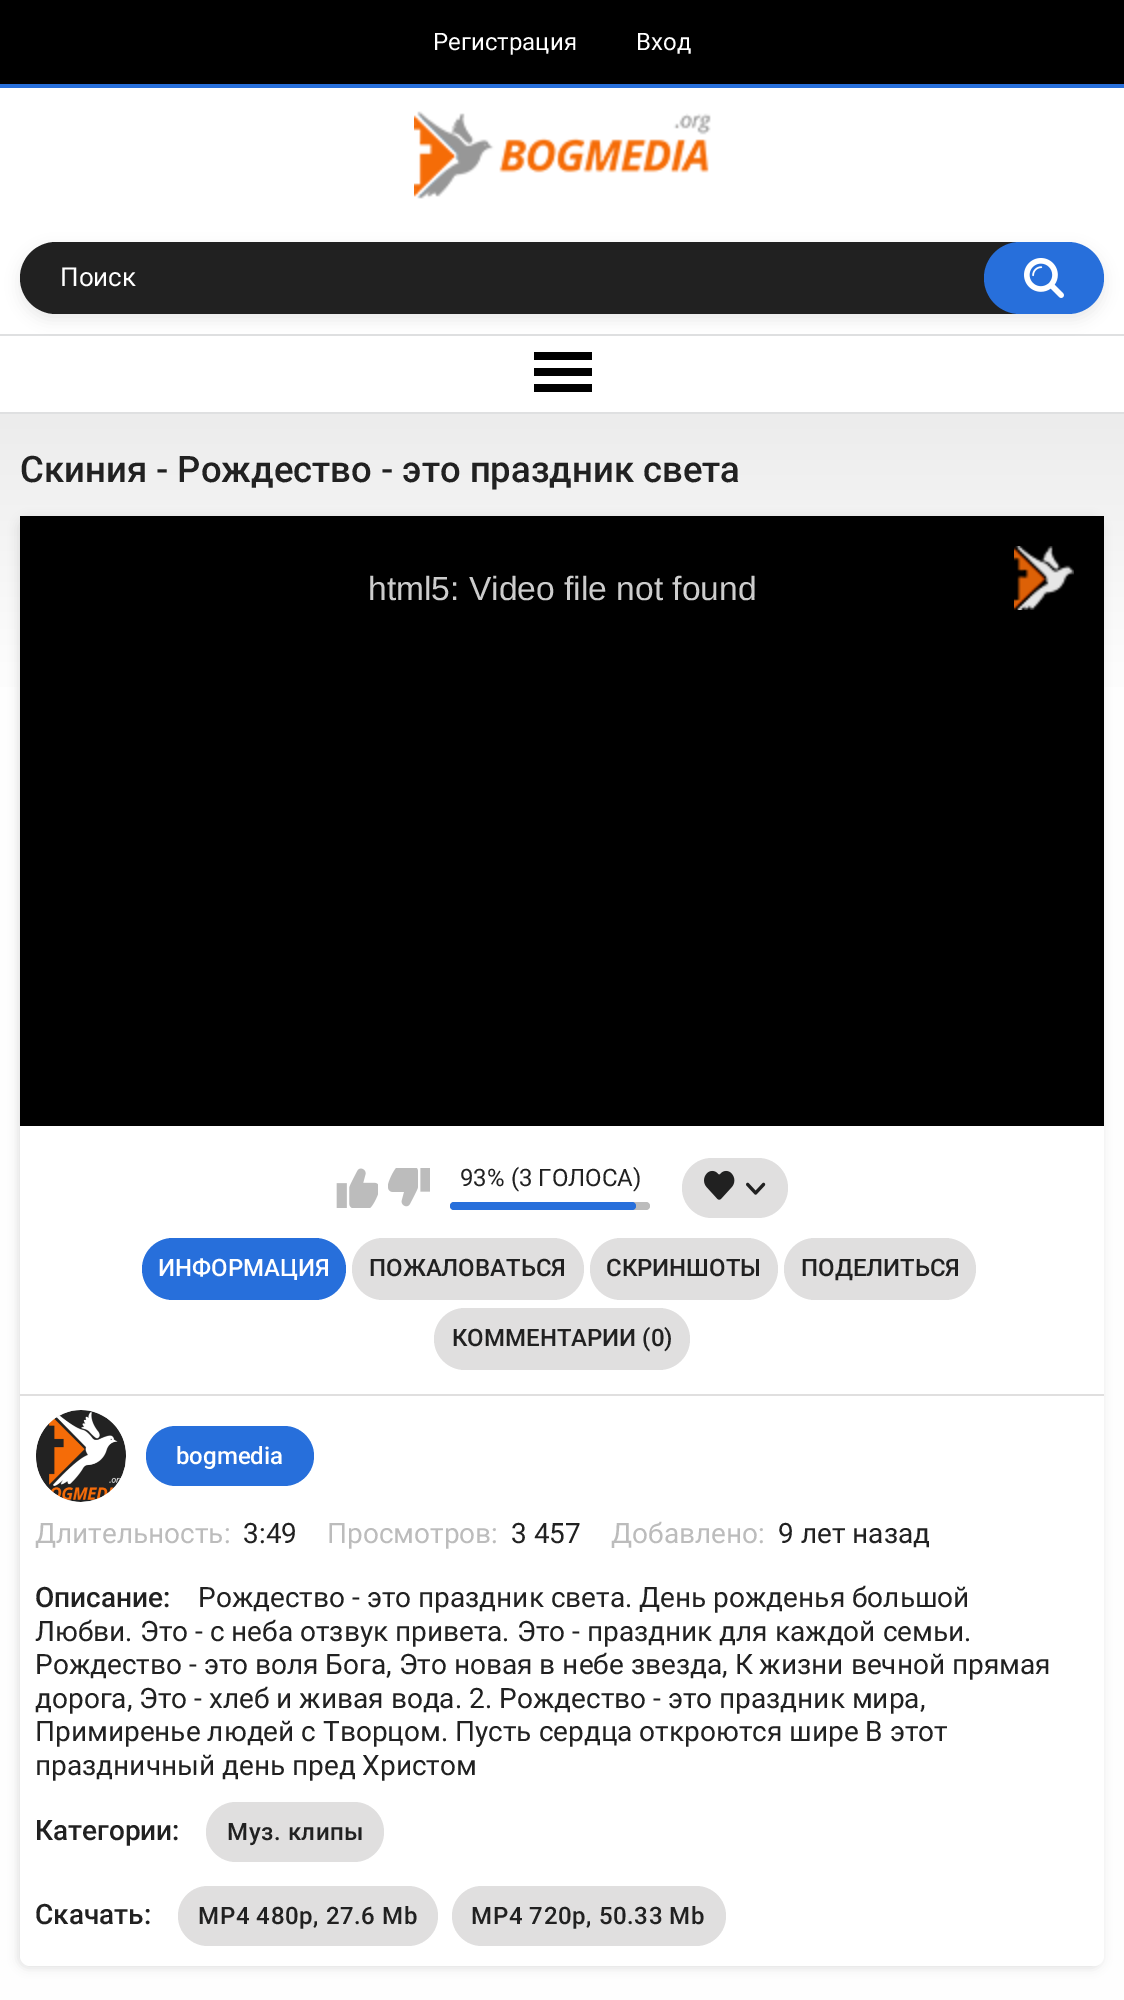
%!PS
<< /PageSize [1124 2000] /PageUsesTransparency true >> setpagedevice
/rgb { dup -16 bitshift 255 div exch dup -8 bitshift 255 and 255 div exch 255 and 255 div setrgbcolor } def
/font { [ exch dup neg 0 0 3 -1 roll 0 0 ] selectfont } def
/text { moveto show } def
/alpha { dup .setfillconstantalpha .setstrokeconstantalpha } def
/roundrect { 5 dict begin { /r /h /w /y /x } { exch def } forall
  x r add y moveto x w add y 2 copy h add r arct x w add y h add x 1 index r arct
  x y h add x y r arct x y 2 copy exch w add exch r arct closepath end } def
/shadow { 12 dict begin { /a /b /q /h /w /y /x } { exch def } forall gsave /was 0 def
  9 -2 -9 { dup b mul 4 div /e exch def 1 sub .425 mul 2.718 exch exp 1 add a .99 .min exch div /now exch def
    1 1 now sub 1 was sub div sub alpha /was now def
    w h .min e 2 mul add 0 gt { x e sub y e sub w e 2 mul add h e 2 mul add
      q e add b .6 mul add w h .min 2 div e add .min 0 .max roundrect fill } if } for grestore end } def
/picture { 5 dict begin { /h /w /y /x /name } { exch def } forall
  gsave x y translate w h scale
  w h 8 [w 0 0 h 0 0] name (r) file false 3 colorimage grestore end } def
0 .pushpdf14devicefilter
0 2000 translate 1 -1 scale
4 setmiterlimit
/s1 { /Roboto-Regular 24 font 16#FFFFFF rgb } def
/s2 { /Roboto-Regular 26 font 16#FFFFFF rgb } def
/s3 { /Roboto-Medium 36.5 font 16#212121 rgb } def
/s4 { /LiberationSans-Regular 33.6 font 16#CCCCCC rgb } def
/s5 { /Roboto-Regular 24 font 16#212121 rgb } def
/s6 { /Roboto-Medium 24 font 16#FFFFFF rgb } def
/s7 { /Roboto-Medium 24 font 16#212121 rgb } def
/s8 { /Roboto-Regular 28 font 16#BCBCBC rgb } def
/s9 { /Roboto-Regular 28 font 16#212121 rgb } def
/s10 { /Roboto-Medium 28 font 16#212121 rgb } def
16#000000 rgb
0 0 1124 2000 rectfill
16#276FDB rgb
0 84 1124 4 rectfill
s1
(Регистрация) 433 50 text
(Вход) 636 50 text
gsave 0 414 moveto 1124 414 lineto 1124 2000 lineto 0 2000 lineto closepath clip newpath
<< /ShadingType 2 /ColorSpace /DeviceRGB /Coords [562 88 562 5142] /Extend [true true] /Function << /FunctionType 3 /Domain [0 1] /Functions [<< /FunctionType 2 /Domain [0 1] /C0 [0.906 0.906 0.906] /C1 [0.906 0.906 0.906] /N 1 >> << /FunctionType 2 /Domain [0 1] /C0 [0.906 0.906 0.906] /C1 [0.996 0.996 0.996] /N 1 >> << /FunctionType 2 /Domain [0 1] /C0 [0.996 0.996 0.996] /C1 [0.996 0.996 0.996] /N 1 >>] /Bounds [0.05 0.12] /Encode [0 1 0 1 0 1] >> >> shfill grestore
0 88 1124 246 rectfill
(pic1.raw) 414 111 297 88 picture
0 336 1124 76 rectfill
16#DFE0E1 rgb
0 334 1124 2 rectfill
16#000000 rgb
20 248 1084 72 36 7 0.08 shadow
16#212121 rgb
20 242 1064 72 36 roundrect fill
s2
(Поиск) 60 286 text
16#276FDB rgb
984 242 120 72 36 roundrect fill
(pic2.raw) 1024 258 40 40 picture
16#DFE0E1 rgb
0 412 1124 2 rectfill
16#000000 rgb
534 352 58 8 rectfill
534 368 58 8 rectfill
534 384 58 8 rectfill
s3
(Скиния - Рождество - это праздник света) 20 482 text
16#CFCFCF rgb
18 518 1084 1450 10 5 0.65 shadow
16#FFFFFF rgb
20 516 moveto 1104 516 lineto 1104 1956 lineto 1104 1961.5 1099.5 1966 1094 1966 curveto 30 1966 lineto 24.5 1966 20 1961.5 20 1956 curveto closepath fill
16#000000 rgb
20 516 1084 610 rectfill
s4
(html5: Video file not found) 368 600 text
(pic3.raw) 1014 546 60 64 picture
16#E0DFDF rgb
20 1394 1084 2 rectfill
(pic4.raw) 336 1168 42 40 picture
(pic5.raw) 388 1168 42 39 picture
s5
(93% \(3 ГОЛОСА\)) 460 1186 text
16#BCBCBC rgb
450 1202 200 8 4 roundrect fill
16#276FDB rgb
450 1202 186 8 4 roundrect fill
16#E0DFDF rgb
682 1158 106 60 30 roundrect fill
(pic6.raw) 704 1170 31 30 picture
(pic7.raw) 746 1182 20 13 picture
16#276FDB rgb
142 1238 204 62 31 roundrect fill
s6
(ИНФОРМАЦИЯ) 158 1276 text
16#E0DFDF rgb
352 1238 232 62 31 roundrect fill
s7
(ПОЖАЛОВАТЬСЯ) 369 1276 text
16#E0DFDF rgb
590 1238 188 62 31 roundrect fill
s7
(СКРИНШОТЫ) 606 1276 text
16#E0DFDF rgb
784 1238 192 62 31 roundrect fill
s7
(ПОДЕЛИТЬСЯ) 801 1276 text
16#E0DFDF rgb
434 1308 256 62 31 roundrect fill
s7
(КОММЕНТАРИИ \(0\)) 452 1346 text
16#E0DFDF rgb
36 1410 90 92 45 roundrect fill
(pic8.raw) 36 1410 90 92 picture
16#276FDB rgb
146 1426 168 60 30 roundrect fill
s6
(bogmedia) 176 1464 text
s8
(Длительность:) 35 1543 text
s9
(3:49) 243 1543 text
s8
(Просмотров:) 327 1543 text
s9
(3 457) 511 1543 text
s8
(Добавлено:) 611 1543 text
s9
(9 лет назад) 778 1543 text
s10
(Описание:) 35 1607 text
s9
(Рождество - это праздник света. День рожденья большой) 198 1607 text
(Любви. Это - с неба отзвук привета. Это - праздник для каждой семьи.) 35 1641 text
(Рождество - это воля Бога, Это новая в небе звезда, К жизни вечной прямая) 35 1674 text
(дорога, Это - хлеб и живая вода. 2. Рождество - это праздник мира,) 35 1708 text
(Примиренье людей с Творцом. Пусть сердца откроются шире В этот) 35 1741 text
(праздничный день пред Христом) 35 1775 text
s10
(Категории:) 35 1840 text
16#E0DFDF rgb
206 1802 178 60 30 roundrect fill
/Roboto-Medium 24 font
16#212121 rgb
227 1840 moveto 0.6 0 (Муз. клипы) ashow
s10
(Скачать:) 35 1924 text
16#E0DFDF rgb
178 1886 260 60 30 roundrect fill
/Roboto-Medium 24 font
16#212121 rgb
198 1924 moveto 0.6 0 (MP4 480p, 27.6 Mb) ashow
16#E0DFDF rgb
452 1886 274 60 30 roundrect fill
16#212121 rgb
471 1924 moveto 0.6 0 (MP4 720p, 50.33 Mb) ashow
.poppdf14devicefilter showpage
